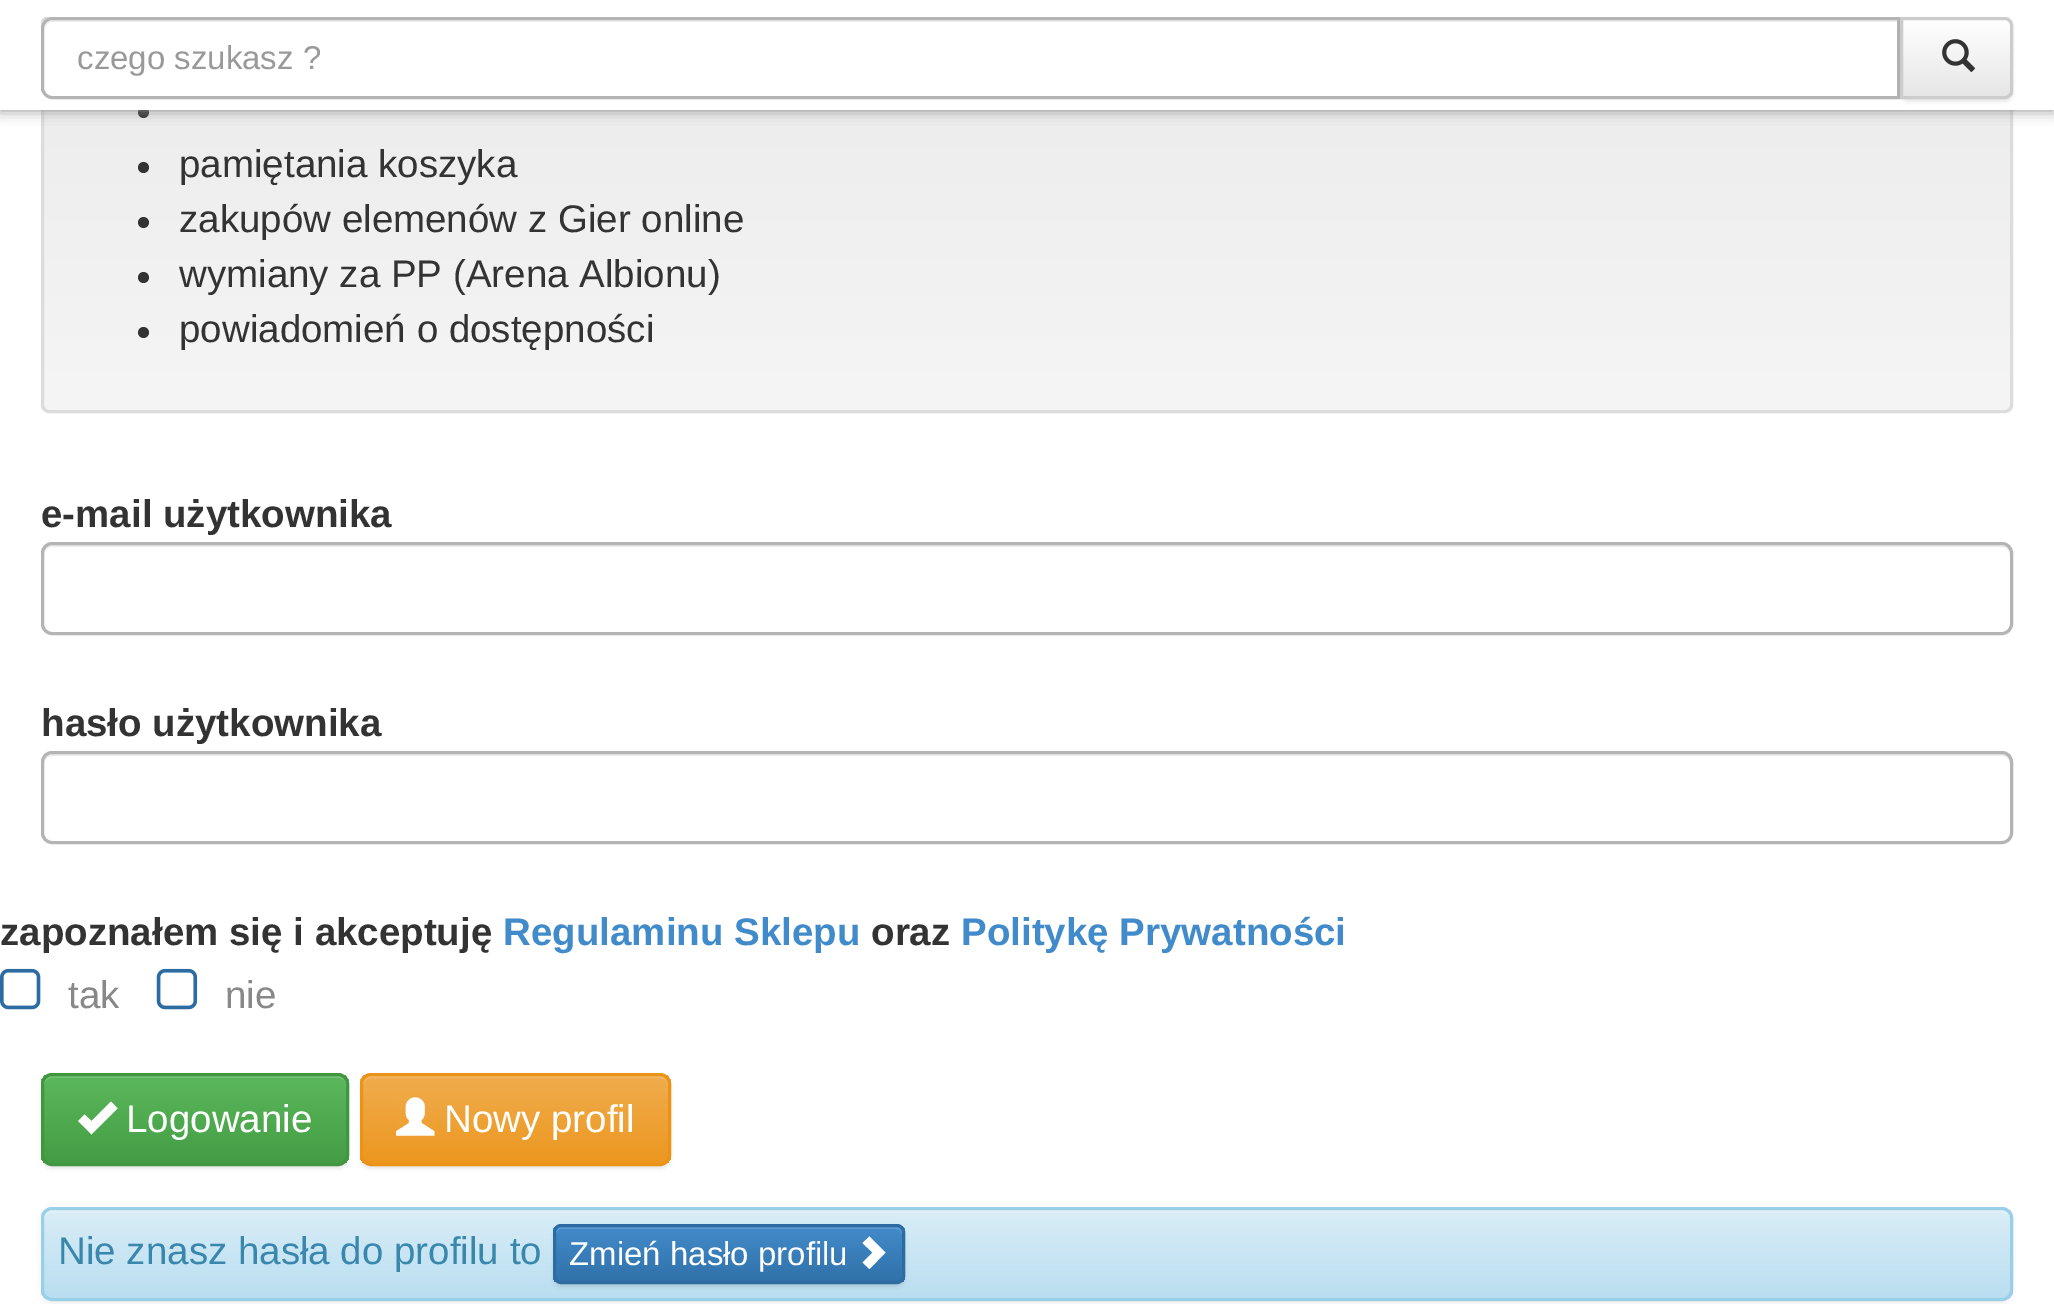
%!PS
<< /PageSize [2054 1304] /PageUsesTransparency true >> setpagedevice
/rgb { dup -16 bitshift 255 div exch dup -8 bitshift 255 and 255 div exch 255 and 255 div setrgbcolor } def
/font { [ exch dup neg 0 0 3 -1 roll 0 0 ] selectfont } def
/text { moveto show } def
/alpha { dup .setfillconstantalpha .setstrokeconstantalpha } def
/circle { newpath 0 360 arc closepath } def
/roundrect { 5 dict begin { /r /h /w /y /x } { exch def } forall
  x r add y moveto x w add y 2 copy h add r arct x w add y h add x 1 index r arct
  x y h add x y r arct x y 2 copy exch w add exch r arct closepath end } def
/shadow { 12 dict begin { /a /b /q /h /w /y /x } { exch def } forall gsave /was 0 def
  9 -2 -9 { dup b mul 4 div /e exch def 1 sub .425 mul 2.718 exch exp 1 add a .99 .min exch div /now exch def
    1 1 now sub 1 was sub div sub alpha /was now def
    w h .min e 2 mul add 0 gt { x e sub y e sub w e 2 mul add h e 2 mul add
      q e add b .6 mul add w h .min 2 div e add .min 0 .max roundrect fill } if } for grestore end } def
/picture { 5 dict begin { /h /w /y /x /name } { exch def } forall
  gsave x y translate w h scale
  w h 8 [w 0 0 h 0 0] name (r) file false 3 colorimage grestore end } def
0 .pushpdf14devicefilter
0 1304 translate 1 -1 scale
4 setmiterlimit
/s1 { /LiberationSans-Regular 33 font 16#999999 rgb } def
/s2 { /LiberationSans-Regular 38.5 font 16#333333 rgb } def
/s3 { /LiberationSans-Bold 38.5 font 16#333333 rgb } def
/s4 { /LiberationSans-Bold 38.5 font 16#428BCA rgb } def
/s5 { /LiberationSans-Regular 38.5 font 16#888888 rgb } def
/s6 { /LiberationSans-Regular 38.5 font 16#FFFFFF rgb } def
/s7 { /LiberationSans-Regular 38.5 font 16#3A87AD rgb } def
/s8 { /LiberationSans-Regular 33 font 16#FFFFFF rgb } def
16#FFFFFF rgb
0 0 2054 1304 rectfill
gsave
41 -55 1972 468 8 roundrect clip newpath
gsave 41 110 moveto 2013 110 lineto 2013 410 lineto 41 410 lineto closepath clip newpath
<< /ShadingType 2 /ColorSpace /DeviceRGB /Coords [1027 -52 1027 410] /Extend [true true] /Function << /FunctionType 2 /Domain [0 1] /C0 [0.91 0.91 0.91] /C1 [0.961 0.961 0.961] /N 1 >> >> shfill grestore
grestore
16#DCDCDC rgb
3 setlinewidth
42.5 -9.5 1969 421 6.5 roundrect stroke
16#333333 rgb
143.5 112.5 5.5 circle fill
16#888888 rgb
0 0 2054 110 0 7 1 shadow
16#FFFFFF rgb
0 0 2054 110 rectfill
16#D6D6D6 rgb
42.5 18.5 517 68 4.5 roundrect stroke
16#FFFFFF rgb
52 17 moveto 1900 17 lineto 1900 99 lineto 52 99 lineto 46 99 41 94 41 88 curveto 41 28 lineto 41 22 46 17 52 17 curveto closepath fill
16#ECECEC rgb
52 22 moveto 1898 22 lineto 1898 19 lineto 52 19 lineto 48 19 44 23 44 27 curveto 44 30 lineto 44 26 48 22 52 22 curveto closepath fill
16#B4B4B4 rgb
52 18.5 moveto 1898.5 18.5 lineto 1898.5 97.5 lineto 52 97.5 lineto 47 97.5 42.5 93 42.5 88 curveto 42.5 28 lineto 42.5 23 47 18.5 52 18.5 curveto closepath stroke
s1
(czego szukasz ?) 77 69 text
16#000000 rgb
1900 19 113 83 8 1.5 0.07 shadow
gsave
1900 17 moveto 2005 17 lineto 2009.5 17 2013 20.5 2013 25 curveto 2013 91 lineto 2013 95.5 2009.5 99 2005 99 curveto 1900 99 lineto closepath clip newpath
gsave 1903 19 moveto 2013 19 lineto 2013 96 lineto 1903 96 lineto closepath clip newpath
<< /ShadingType 2 /ColorSpace /DeviceRGB /Coords [1957 19 1957 96] /Extend [true true] /Function << /FunctionType 2 /Domain [0 1] /C0 [1 1 1] /C1 [0.902 0.902 0.902] /N 1 >> >> shfill grestore
grestore
16#CCCCCC rgb
1901.5 18.5 moveto 2005 18.5 lineto 2008.5 18.5 2011.5 21.5 2011.5 25 curveto 2011.5 91 lineto 2011.5 94.5 2008.5 97.5 2005 97.5 curveto 1901.5 97.5 lineto closepath stroke
(pic1.raw) 1942 39 33 33 picture
16#333333 rgb
143.5 167.5 5.5 circle fill
s2
(pamiętania koszyka) 179 177 text
143.5 222.5 5.5 circle fill
(zakupów elemenów z Gier online) 179 232 text
143.5 277.5 5.5 circle fill
(wymiany za PP \(Arena Albionu\)) 179 287 text
143.5 332.5 5.5 circle fill
(powiadomień o dostępności) 179 342 text
s3
(e-mail użytkownika) 41 527 text
16#ECECEC rgb
52 547 moveto 2002 547 lineto 2007 547 2010 551 2010 556 curveto 2010 553 lineto 2010 549 2006 545 2002 545 curveto 52 545 lineto 48 545 44 549 44 553 curveto 44 556 lineto 44 551 48 547 52 547 curveto closepath fill
16#B4B4B4 rgb
42.5 543.5 1969 90 9.5 roundrect stroke
s3
(hasło użytkownika) 41 736 text
16#ECECEC rgb
52 756 moveto 2002 756 lineto 2007 756 2010 760 2010 764 curveto 2010 759 2008 754 2002 754 curveto 52 754 lineto 46 754 44 759 44 764 curveto 44 760 48 756 52 756 curveto closepath fill
16#B4B4B4 rgb
42.5 752.5 1969 90 9.5 roundrect stroke
s3
(zapoznałem się i akceptuję) 0 945 text
s4
(Regulaminu Sklepu) 503 945 text
s3
(oraz) 871 945 text
s4
(Politykę Prywatności) 961 945 text
(pic2.raw) 0 968 41 42 picture
s5
(tak) 68 1008 text
(pic3.raw) 156 968 42 42 picture
(nie) 225 1008 text
16#000000 rgb
41 1075 308 94 11 1.5 0.07 shadow
gsave
41 1073 308 93 11 roundrect clip newpath
gsave 41 1075 moveto 349 1075 lineto 349 1163 lineto 41 1163 lineto closepath clip newpath
<< /ShadingType 2 /ColorSpace /DeviceRGB /Coords [195 1075 195 1163] /Extend [true true] /Function << /FunctionType 2 /Domain [0 1] /C0 [0.361 0.722 0.361] /C1 [0.267 0.616 0.267] /N 1 >> >> shfill grestore
grestore
0.15 alpha
16#FFFFFF rgb
52 1078 moveto 338 1078 lineto 343 1078 346 1082 346 1086 curveto 346 1159 lineto 347 1158 347 1156 347 1155 curveto 347 1083 lineto 347 1079 343 1075 339 1075 curveto 52 1075 lineto 48 1075 44 1079 44 1083 curveto 44 1086 lineto 44 1082 48 1078 52 1078 curveto closepath fill
1 alpha
16#419641 rgb
42.5 1074.5 305 90 9.5 roundrect stroke
16#FFFFFF rgb
91.5 1134.5 moveto 117.5 1108.5 lineto 111 1101.5 lineto 91.5 1121 lineto 84.5 1114.5 lineto 78 1121 lineto closepath fill
(Logowanie) 126 1132 text
16#000000 rgb
360 1075 311 94 11 1.5 0.07 shadow
gsave
360 1073 311 93 11 roundrect clip newpath
gsave 360 1075 moveto 671 1075 lineto 671 1163 lineto 360 1163 lineto closepath clip newpath
<< /ShadingType 2 /ColorSpace /DeviceRGB /Coords [516 1075 516 1163] /Extend [true true] /Function << /FunctionType 2 /Domain [0 1] /C0 [0.941 0.678 0.306] /C1 [0.925 0.592 0.122] /N 1 >> >> shfill grestore
grestore
0.15 alpha
16#FFFFFF rgb
371 1078 moveto 660 1078 lineto 665 1078 668 1082 668 1086 curveto 668 1083 lineto 668 1079 664 1075 660 1075 curveto 371 1075 lineto 367 1075 363 1079 363 1083 curveto 363 1086 lineto 363 1082 367 1078 371 1078 curveto closepath fill
1 alpha
16#EB9316 rgb
361.5 1074.5 308 90 9.5 roundrect stroke
(pic4.raw) 396 1097 39 39 picture
s6
(Nowy profil) 444 1132 text
16#000000 rgb
41 1210 1972 94 11 3 0.05 shadow
gsave
41 1207 1972 94 11 roundrect clip newpath
gsave 41 1210 moveto 2013 1210 lineto 2013 1298 lineto 41 1298 lineto closepath clip newpath
<< /ShadingType 2 /ColorSpace /DeviceRGB /Coords [1027 1210 1027 1298] /Extend [true true] /Function << /FunctionType 2 /Domain [0 1] /C0 [0.851 0.929 0.969] /C1 [0.725 0.871 0.941] /N 1 >> >> shfill grestore
grestore
0.25 alpha
16#FFFFFF rgb
52 1213 moveto 2002 1213 lineto 2007 1213 2010 1216 2010 1221 curveto 2010 1218 lineto 2010 1214 2006 1210 2002 1210 curveto 52 1210 lineto 48 1210 44 1214 44 1218 curveto 44 1221 lineto 44 1216 48 1213 52 1213 curveto closepath fill
1 alpha
16#9ACFEA rgb
42.5 1208.5 1969 91 9.5 roundrect stroke
s7
(Nie znasz hasła do profilu to) 58 1264 text
16#000000 rgb
553 1227 352 60 8 1.5 0.07 shadow
gsave
553 1224 352 60 8 roundrect clip newpath
gsave 553 1227 moveto 905 1227 lineto 905 1282 lineto 553 1282 lineto closepath clip newpath
<< /ShadingType 2 /ColorSpace /DeviceRGB /Coords [729 1227 729 1282] /Extend [true true] /Function << /FunctionType 2 /Domain [0 1] /C0 [0.259 0.545 0.792] /C1 [0.188 0.443 0.663] /N 1 >> >> shfill grestore
grestore
0.15 alpha
16#FFFFFF rgb
561 1229 moveto 896 1229 lineto 900 1229 902 1232 902 1235 curveto 902 1233 lineto 902 1230 899 1227 896 1227 curveto 562 1227 lineto 559 1227 556 1230 556 1233 curveto 556 1235 lineto 556 1232 558 1229 561 1229 curveto closepath fill
1 alpha
16#2D6CA2 rgb
554.5 1225.5 349 57 6.5 roundrect stroke
s8
(Zmień hasło profilu) 569 1265 text
869.5 1269 moveto 862.5 1262.5 lineto 872.5 1252.5 lineto 862.5 1243 lineto 869.5 1236.5 lineto 885.5 1252.5 lineto closepath fill
.poppdf14devicefilter showpage
